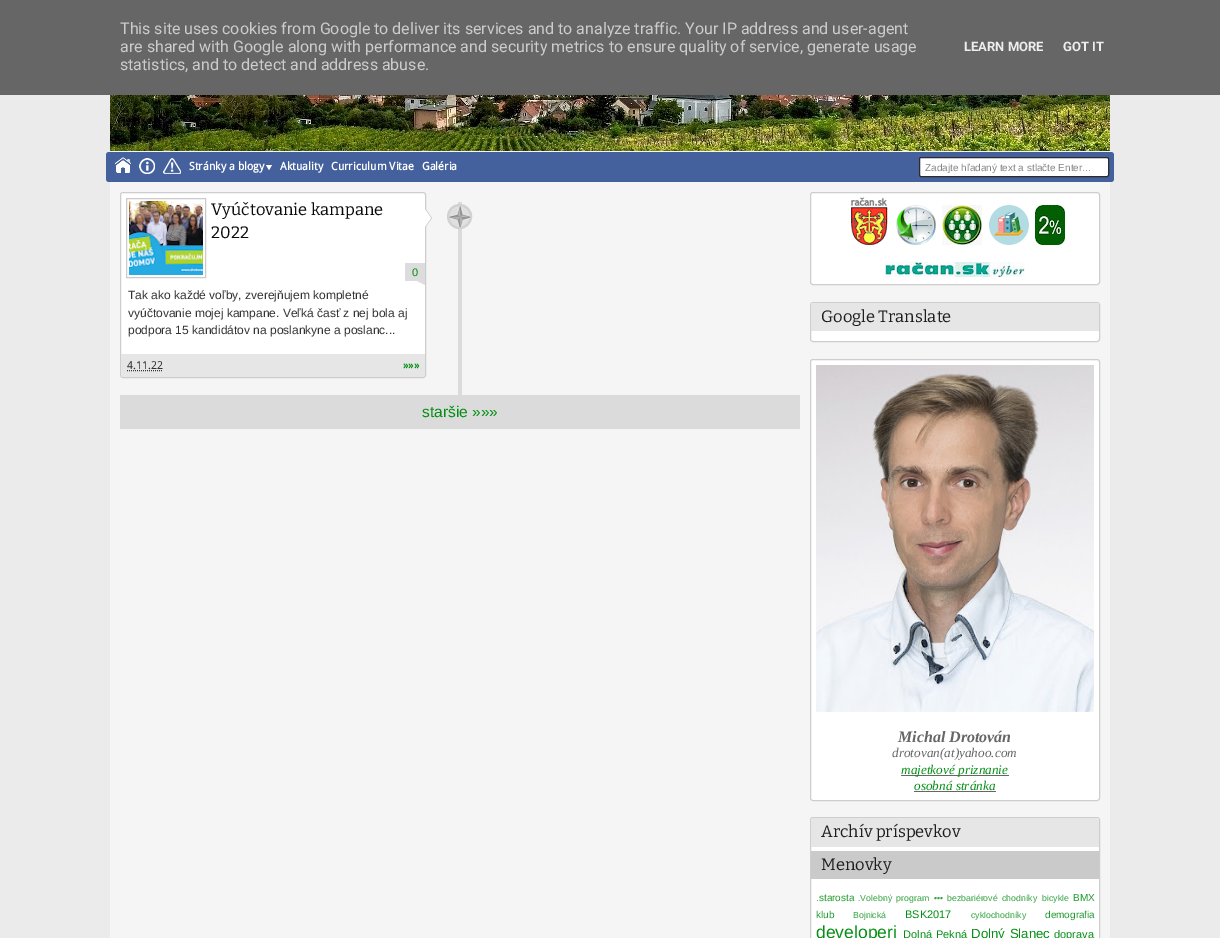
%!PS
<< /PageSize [1220 938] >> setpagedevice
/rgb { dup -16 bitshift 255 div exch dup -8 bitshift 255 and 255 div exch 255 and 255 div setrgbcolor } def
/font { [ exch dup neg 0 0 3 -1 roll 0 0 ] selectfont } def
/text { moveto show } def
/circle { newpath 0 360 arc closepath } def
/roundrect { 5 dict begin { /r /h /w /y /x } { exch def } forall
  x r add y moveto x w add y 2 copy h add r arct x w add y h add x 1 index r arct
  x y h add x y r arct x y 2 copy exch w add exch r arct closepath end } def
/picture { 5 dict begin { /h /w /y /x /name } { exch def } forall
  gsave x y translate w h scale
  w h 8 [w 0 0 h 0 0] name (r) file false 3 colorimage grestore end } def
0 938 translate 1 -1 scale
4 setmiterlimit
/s1 { /Roboto-Regular 16 font 16#CCCCCC rgb } def
/s2 { /Roboto-Bold 13 font 16#EEEEEE rgb } def
/s3 { /DroidSans-Bold 11 font 16#FFFFFF rgb } def
/s4 { /LiberationSans-Regular 10 font 16#838383 rgb } def
/s5 { /Bitter-Thin 16.5 font 16#0A0A0A rgb } def
/s6 { /LiberationSans-Regular 11 font 16#048F14 rgb } def
/s7 { /LiberationSans-Regular 12 font 16#333333 rgb } def
/s8 { /DroidSans-Regular 11 font 16#333333 rgb } def
/s9 { /DroidSans-Bold 11 font 16#048F14 rgb } def
/s10 { /LiberationSans-Regular 15.5 font 16#048F14 rgb } def
/s11 { /Bitter-Thin 16.5 font 16#1D1D1D rgb } def
/s12 { /LiberationSerif-BoldItalic 16 font 16#666666 rgb } def
/s13 { /LiberationSerif-Italic 13.25 font 16#666666 rgb } def
/s14 { /LiberationSerif-Italic 13.25 font 16#048F14 rgb } def
/s15 { /LiberationSans-Regular 10 font 16#1D9A2C rgb } def
/s16 { /LiberationSans-Regular 8.75 font 16#36A543 rgb } def
/s17 { /LiberationSans-Regular 17.5 font 16#048F14 rgb } def
16#EBEBEB rgb
0 0 1220 938 rectfill
16#666666 rgb
0 0 1220 95 rectfill
s1
(This site uses cookies from Google to deliver its services and to analyze traffic. Your IP address and user-agent) 120 34 text
(are shared with Google along with performance and security metrics to ensure quality of service, generate usage) 120 52 text
(statistics, and to detect and address abuse.) 120 70 text
s2
(LEARN MORE) 964 51 text
(GOT IT) 1063 51 text
16#F5F5F5 rgb
110 151 1000 787 rectfill
(pic1.raw) 110 95 1000 56 picture
16#44609D rgb
106 152 1008 30 3 roundrect fill
(pic2.raw) 115 157 16 16 picture
(pic3.raw) 139 158 16 16 picture
(pic4.raw) 163 158 18 16 picture
s3
(Stránky a blogy) 189 170 text
266 165 moveto 272 165 lineto 269 170 lineto closepath fill
(Aktuality) 280 170 text
(Curriculum Vitae) 331 170 text
(Galéria) 422 170 text
919.5 157.5 189 19 1.5 roundrect gsave fill grestore
16#2B2B2B rgb
stroke
s4
(Zadajte hľadaný text a stlačte Enter...) 925 171 text
16#FFFFFF rgb
120.5 192.5 305 185 2.5 roundrect gsave fill grestore
16#CECECE rgb
stroke
16#CCCBCB rgb
126.5 198.5 79 79 rectstroke
(pic5.raw) 129 201 74 74 picture
s5
(Vyúčtovanie kampane) 211 215 text
(2022) 211 238 text
16#CECECE rgb
425 228 moveto 425 208 lineto 432 218 lineto closepath fill
16#FFFFFF rgb
424 228 moveto 424 208 lineto 431 218 lineto closepath fill
16#DBDBDB rgb
458 202 4 193 rectfill
(pic6.raw) 448 205 24 24 picture
16#D1D1D1 rgb
2 setlinewidth
459.5 216.5 11.5 circle stroke
16#DDDCDC rgb
405 263 20 18 rectfill
s6
(0) 412 276 text
16#DDDCDC rgb
417 281 moveto 425 281 lineto 421 283 lineto closepath fill
425 281 moveto 425 285 lineto 421 283 lineto closepath fill
s7
(Tak ako každé voľby, zverejňujem kompletné) 128 299 text
(vyúčtovanie mojej kampane. Veľká časť z nej bola aj) 128 317 text
(podpora 15 kandidátov na poslankyne a poslanc...) 128 334 text
16#E6E6E6 rgb
121 354 moveto 425 354 lineto 425 374 lineto 425 375.5 423.5 377 422 377 curveto 124 377 lineto 122.5 377 121 375.5 121 374 curveto closepath fill
s8
(4.11.22) 127 369 text
1 setlinewidth
[1 1] 0 setdash
127 370.5 moveto 163 370.5 lineto stroke
s9
(»»») 403 369 text
16#DBDBDB rgb
120 395 680 34 rectfill
s10
(staršie »»») 422 417 text
16#FFFFFF rgb
810.5 192.5 289 92 2.5 roundrect gsave fill grestore
16#CECECE rgb
[] 0 setdash
stroke
(pic7.raw) 851 197 37 48 picture
(pic8.raw) 896 205 40 40 picture
(pic9.raw) 942 205 40 40 picture
(pic10.raw) 989 205 40 40 picture
(pic11.raw) 1035 205 30 40 picture
(pic12.raw) 885 262 140 15 picture
16#FFFFFF rgb
810.5 302.5 289 39 2.5 roundrect gsave fill grestore
16#CECECE rgb
stroke
16#E6E6E6 rgb
811 303 288 28 rectfill
s11
(Google Translate) 821 322 text
16#FFFFFF rgb
810.5 359.5 289 441 2.5 roundrect gsave fill grestore
16#CECECE rgb
stroke
(pic13.raw) 816 365 278 347 picture
s12
(Michal Drotován) 898 742 text
s13
(drotovan\(at\)yahoo.com) 892 757 text
901 775 108 1 rectfill
s14
(majetkové priznanie) 901 774 text
(osobná stránka) 914 790 text
16#666666 rgb
914 791 82 1 rectfill
16#FFFFFF rgb
810.5 817.5 289 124 2.5 roundrect gsave fill grestore
16#CECECE rgb
stroke
16#E6E6E6 rgb
813 818 moveto 1097 818 lineto 1098 818 1099 819 1099 820 curveto 1099 847 lineto 811 847 lineto 811 820 lineto 811 819 812 818 813 818 curveto closepath fill
s11
(Archív príspevkov) 821 837 text
16#CACACA rgb
811 851 288 28 rectfill
s11
(Menovky) 821 870 text
s15
(.starosta) 816 901 text
/LiberationSans-Regular 8.75 font
16#36A543 rgb
858 901 moveto 2 0 32 (.Volebný program) widthshow
(•••) 934 901 text
947 901 moveto 2 0 32 (bezbariérové chodníky) widthshow
(bicykle) 1042 901 text
s15
(BMX) 1073 901 text
(klub) 816 918 text
s16
(Bojnická) 853 918 text
s6
(BSK2017) 905 918 text
s16
(cyklochodníky) 971 918 text
s15
(demografia) 1045 918 text
s17
(developeri) 816 938 text
/LiberationSans-Regular 11 font
903 938 moveto 1 0 32 (Dolná Pekná) widthshow
/LiberationSans-Regular 13.25 font
971 938 moveto 1 0 32 (Dolný Slanec) widthshow
s6
(doprava) 1054 938 text
showpage
